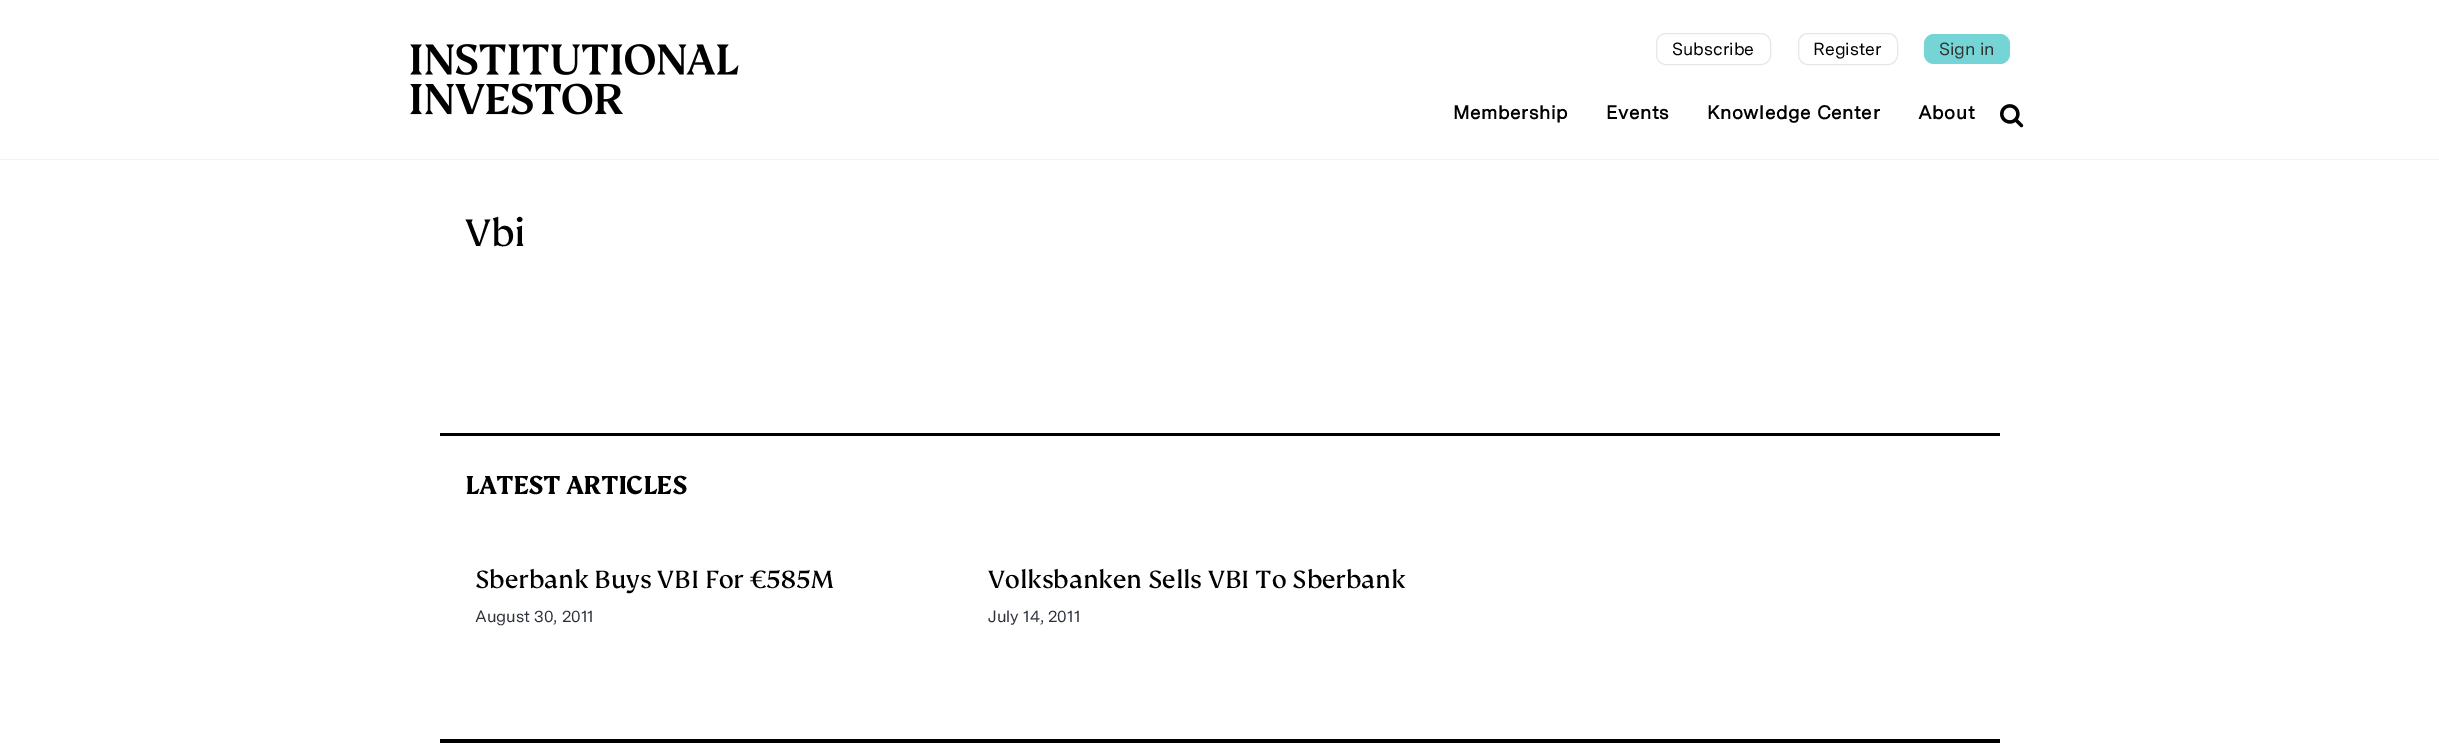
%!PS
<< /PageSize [2439 751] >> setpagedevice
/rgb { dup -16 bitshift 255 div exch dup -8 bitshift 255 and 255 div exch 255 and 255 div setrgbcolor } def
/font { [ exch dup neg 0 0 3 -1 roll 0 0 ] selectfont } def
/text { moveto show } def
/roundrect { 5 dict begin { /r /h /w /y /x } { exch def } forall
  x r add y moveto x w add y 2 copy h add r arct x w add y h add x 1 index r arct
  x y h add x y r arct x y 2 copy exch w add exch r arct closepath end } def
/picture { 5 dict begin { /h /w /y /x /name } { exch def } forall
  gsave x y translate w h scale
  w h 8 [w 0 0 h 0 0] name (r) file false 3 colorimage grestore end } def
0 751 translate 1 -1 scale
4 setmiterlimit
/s1 { /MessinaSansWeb-Regular 17.5 font 16#000000 rgb } def
/s2 { /MessinaSansWeb-Regular 17.5 font 16#333333 rgb } def
/s3 { /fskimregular-Regular 42 font 16#000000 rgb } def
/s4 { /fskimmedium-Bold 27.5 font 16#000000 rgb } def
/s5 { /fskimregular-Regular 27.5 font 16#000000 rgb } def
/s6 { /MessinaSansWeb-Regular 16.25 font 16#2E313B rgb } def
16#FFFFFF rgb
0 0 2439 751 rectfill
16#F2F2F2 rgb
0 159 2439 1 rectfill
(pic1.raw) 410 44 329 71 picture
16#E5E7EB rgb
1656.5 33.5 114 31 9.5 roundrect stroke
s1
(Subscribe) 1672 55 text
16#E5E7EB rgb
1798.5 33.5 99 31 9.5 roundrect stroke
s1
(Register) 1813 55 text
16#75D5D6 rgb
1924 34 86 30 10 roundrect fill
s2
(Sign in) 1939 55 text
/MessinaSansWeb-Bold 18.75 font
16#000000 rgb
1453 119 moveto 0.6 0 (Membership) ashow
1606 119 moveto 0.6 0 (Events) ashow
1707 119 moveto 0.6 0 (Knowledge Center) ashow
1918 119 moveto 0.6 0 (About) ashow
(pic2.raw) 2000 104 24 24 picture
s3
(Vbi) 465 246 text
440 433 1560 3 rectfill
s4
(LATEST ARTICLES) 465 494 text
s5
(Sberbank Buys VBI For €585M) 475 588 text
s6
(August 30, 2011) 475 622 text
s5
(Volksbanken Sells VBI To Sberbank) 988 588 text
s6
(July 14, 2011) 988 622 text
16#000000 rgb
440 739 1560 4 rectfill
showpage
